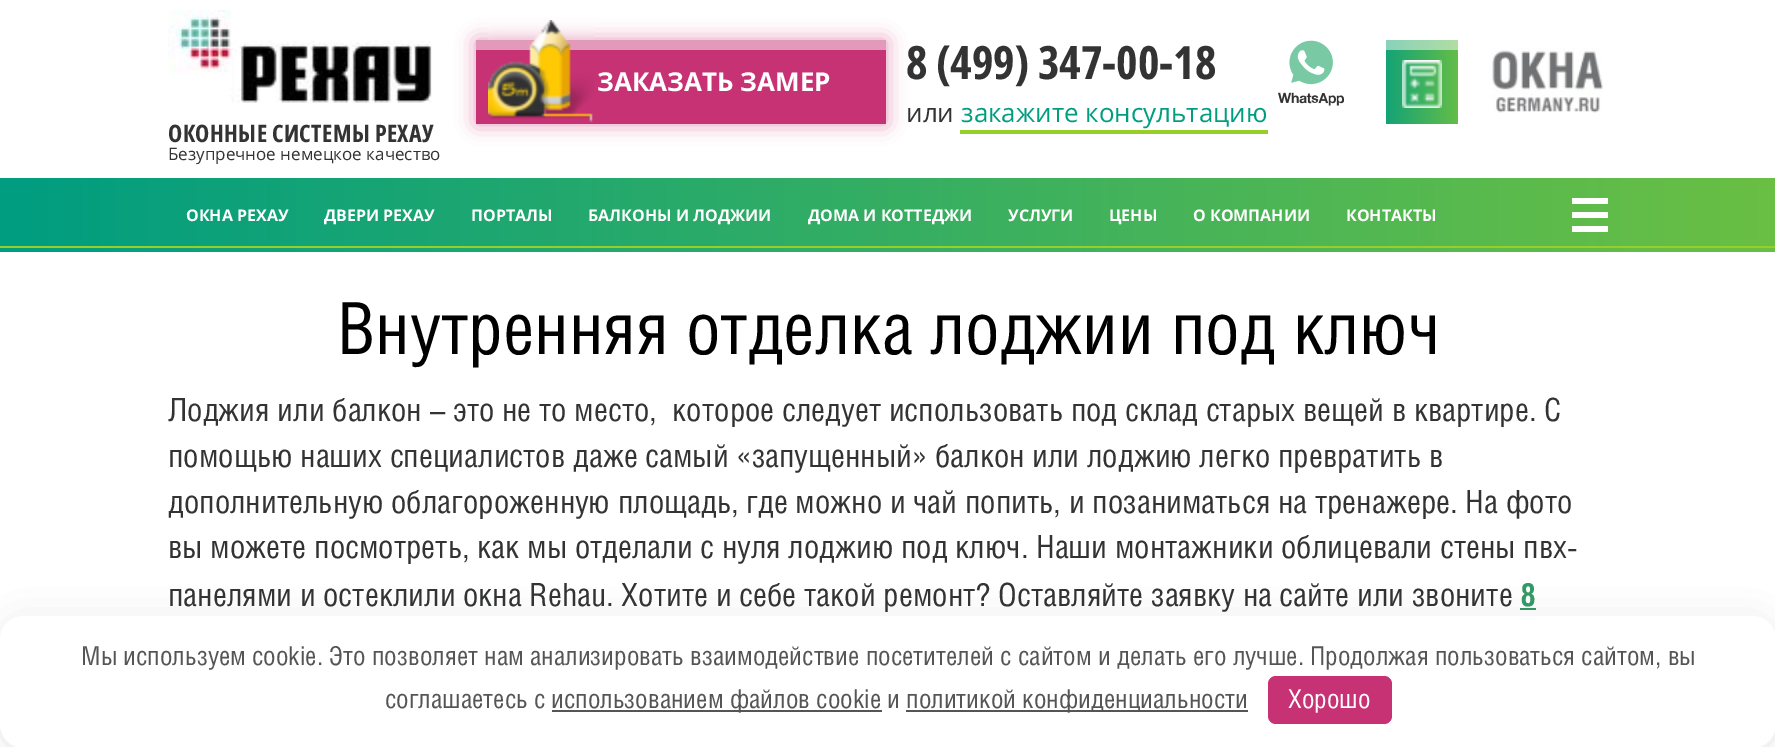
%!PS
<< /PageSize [1775 747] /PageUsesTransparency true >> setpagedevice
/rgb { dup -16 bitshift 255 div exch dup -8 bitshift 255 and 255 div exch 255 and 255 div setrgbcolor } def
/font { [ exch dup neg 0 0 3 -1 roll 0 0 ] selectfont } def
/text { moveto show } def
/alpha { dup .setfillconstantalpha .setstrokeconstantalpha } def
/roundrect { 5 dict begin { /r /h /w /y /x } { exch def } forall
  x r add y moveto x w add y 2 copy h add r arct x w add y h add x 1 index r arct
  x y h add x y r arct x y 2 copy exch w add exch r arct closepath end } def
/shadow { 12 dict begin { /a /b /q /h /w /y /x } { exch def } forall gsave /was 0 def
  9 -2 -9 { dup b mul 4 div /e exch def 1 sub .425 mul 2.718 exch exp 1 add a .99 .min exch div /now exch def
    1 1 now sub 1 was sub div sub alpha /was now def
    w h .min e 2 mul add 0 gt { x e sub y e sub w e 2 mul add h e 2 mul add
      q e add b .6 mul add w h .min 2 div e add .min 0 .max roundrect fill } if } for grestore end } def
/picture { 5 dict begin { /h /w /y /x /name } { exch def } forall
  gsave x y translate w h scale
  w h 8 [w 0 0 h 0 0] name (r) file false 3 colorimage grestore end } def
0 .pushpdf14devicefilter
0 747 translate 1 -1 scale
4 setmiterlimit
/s1 { /OpenSans-Bold 26 font 16#FFFFFF rgb } def
/s2 { /OpenSansCondensed-Bold 46 font 16#333333 rgb } def
/s3 { /OpenSans-Regular 26 font 16#333333 rgb } def
/s4 { /OpenSans-Regular 26 font 16#009D81 rgb } def
/s5 { /OpenSans-Regular 17 font 16#333333 rgb } def
/s6 { /OpenSans-Bold 16 font 16#FFFFFF rgb } def
/s7 { /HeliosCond-Regular 72 font 16#000000 rgb } def
/s8 { /HeliosCond-Regular 32 font 16#333333 rgb } def
/s9 { /HeliosCond-Bold 32 font 16#339966 rgb } def
/s10 { /HeliosCond-Regular 26 font 16#555555 rgb } def
/s11 { /HeliosCond-Regular 26 font 16#FFFFFF rgb } def
16#FFFFFF rgb
0 0 1775 747 rectfill
16#C73274 rgb
476 40 410 84 0 10 0.5 shadow
476 50 410 74 rectfill
16#E399BA rgb
476 40 410 10 rectfill
(pic1.raw) 488 20 106 102 picture
s1
(ЗАКАЗАТЬ ЗАМЕР) 597 91 text
s2
(8 \(499\) 347-00-18) 906 79 text
(pic2.raw) 1278 40 66 66 picture
s3
(или) 906 122 text
s4
(закажите консультацию) 961 122 text
16#97CE2A rgb
960 130 308 4 rectfill
gsave 1386 50 moveto 1458 50 lineto 1458 124 lineto 1386 124 lineto closepath clip newpath
<< /ShadingType 2 /ColorSpace /DeviceRGB /Coords [1386 82 1458 82] /Extend [true true] /Function << /FunctionType 2 /Domain [0 1] /C0 [0.078 0.639 0.463] /C1 [0.388 0.741 0.282] /N 1 >> >> shfill grestore
gsave 1386 40 moveto 1458 40 lineto 1458 50 lineto 1386 50 lineto closepath clip newpath
<< /ShadingType 2 /ColorSpace /DeviceRGB /Coords [1386 82 1458 82] /Extend [true true] /Function << /FunctionType 2 /Domain [0 1] /C0 [0.541 0.82 0.733] /C1 [0.694 0.871 0.643] /N 1 >> >> shfill grestore
(pic3.raw) 1402 60 40 48 picture
(pic4.raw) 1489 48 114 65 picture
(pic5.raw) 168 10 264 93 picture
/OpenSansCondensed-Bold 24 font
16#333333 rgb
168 142 moveto 0.4 0 (ОКОННЫЕ СИСТЕМЫ РЕХАУ) ashow
s5
(Безупречное немецкое качество) 168 160 text
gsave 0 178 moveto 1775 178 lineto 1775 252 lineto 0 252 lineto closepath clip newpath
<< /ShadingType 2 /ColorSpace /DeviceRGB /Coords [0 215 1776 215] /Extend [true true] /Function << /FunctionType 2 /Domain [0 1] /C0 [0 0.616 0.506] /C1 [0.416 0.749 0.267] /N 1 >> >> shfill grestore
s6
(ОКНА РЕХАУ) 186 221 text
(ДВЕРИ РЕХАУ) 324 221 text
(ПОРТАЛЫ) 471 221 text
(БАЛКОНЫ И ЛОДЖИИ) 588 221 text
(ДОМА И КОТТЕДЖИ) 808 221 text
(УСЛУГИ) 1008 221 text
(ЦЕНЫ) 1109 221 text
(О КОМПАНИИ) 1193 221 text
(КОНТАКТЫ) 1346 221 text
1572 198 36 6 rectfill
1572 212 36 6 rectfill
1572 226 36 6 rectfill
16#97CE2A rgb
0 246 1775 2 rectfill
s7
(Внутренняя отделка лоджии под ключ) 337 354 text
s8
(Лоджия или балкон – это не то место,  которое следует использовать под склад старых вещей в квартире. С) 168 421 text
(помощью наших специалистов даже самый «запущенный» балкон или лоджию легко превратить в) 168 467 text
(дополнительную облагороженную площадь, где можно и чай попить, и позаниматься на тренажере. На фото) 168 513 text
(вы можете посмотреть, как мы отделали с нуля лоджию под ключ. Наши монтажники облицевали стены пвх-) 168 558 text
(панелями и остеклили окна Rehau. Хотите и себе такой ремонт? Оставляйте заявку на сайте или звоните) 168 606 text
s9
(8) 1520 606 text
1520 608 16 2 rectfill
16#292C38 rgb
10 632 1756 112 14 20 0.2 shadow
16#FFFFFF rgb
0 616 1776 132 24 roundrect fill
s10
(Мы используем cookie. Это позволяет нам анализировать взаимодействие посетителей с сайтом и делать его лучше. Продолжая пользоваться сайтом, вы) 81 665 text
(соглашаетесь с) 385 708 text
552 710 330 2 rectfill
(использованием файлов cookie и) 551 708 text
906 710 342 2 rectfill
(политикой конфиденциальности) 906 708 text
16#C73274 rgb
1268 676 124 48 8 roundrect fill
s11
(Хорошо) 1288 708 text
.poppdf14devicefilter showpage
